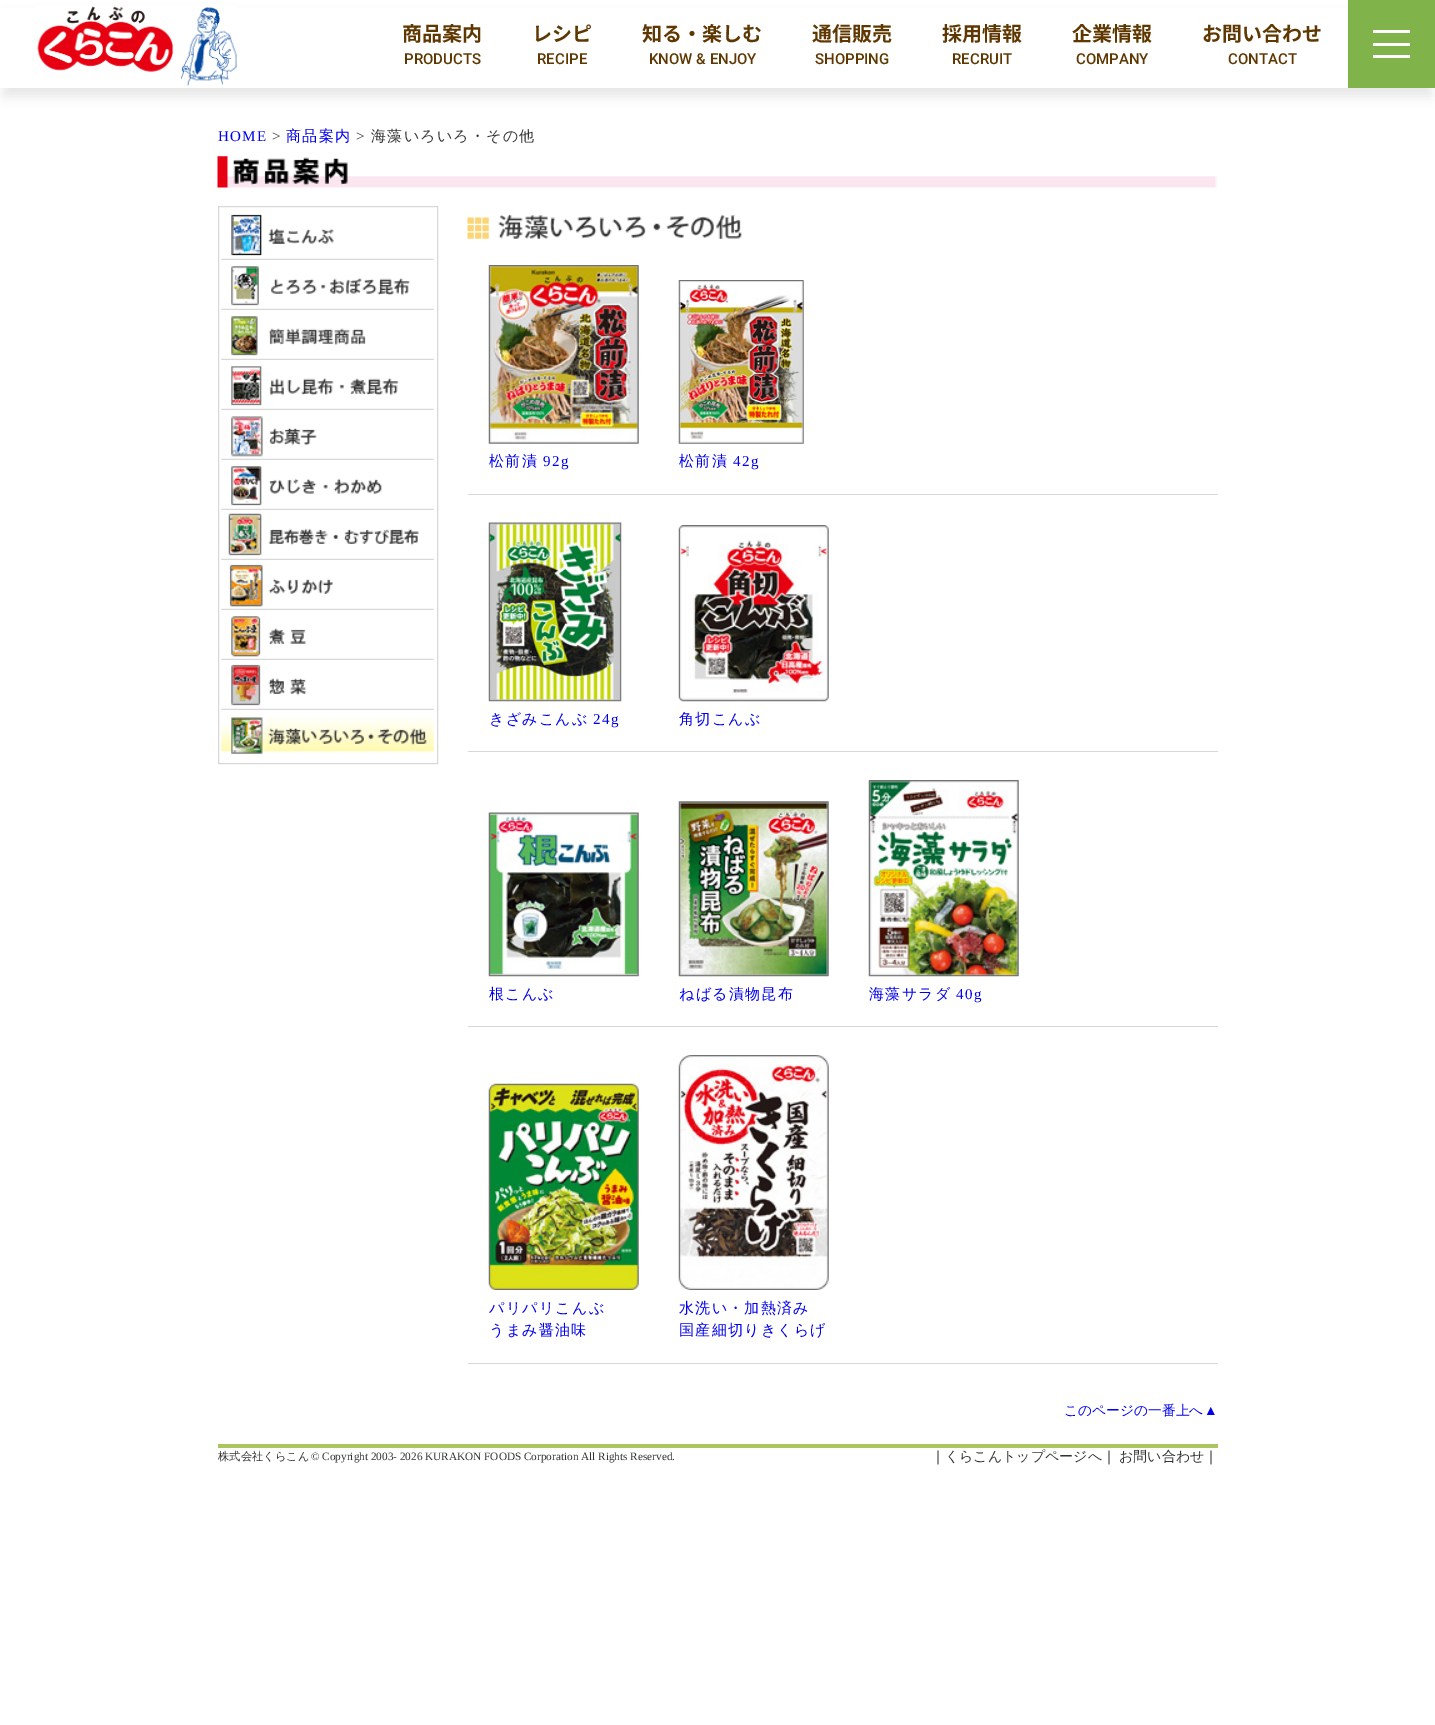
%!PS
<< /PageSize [1435 1725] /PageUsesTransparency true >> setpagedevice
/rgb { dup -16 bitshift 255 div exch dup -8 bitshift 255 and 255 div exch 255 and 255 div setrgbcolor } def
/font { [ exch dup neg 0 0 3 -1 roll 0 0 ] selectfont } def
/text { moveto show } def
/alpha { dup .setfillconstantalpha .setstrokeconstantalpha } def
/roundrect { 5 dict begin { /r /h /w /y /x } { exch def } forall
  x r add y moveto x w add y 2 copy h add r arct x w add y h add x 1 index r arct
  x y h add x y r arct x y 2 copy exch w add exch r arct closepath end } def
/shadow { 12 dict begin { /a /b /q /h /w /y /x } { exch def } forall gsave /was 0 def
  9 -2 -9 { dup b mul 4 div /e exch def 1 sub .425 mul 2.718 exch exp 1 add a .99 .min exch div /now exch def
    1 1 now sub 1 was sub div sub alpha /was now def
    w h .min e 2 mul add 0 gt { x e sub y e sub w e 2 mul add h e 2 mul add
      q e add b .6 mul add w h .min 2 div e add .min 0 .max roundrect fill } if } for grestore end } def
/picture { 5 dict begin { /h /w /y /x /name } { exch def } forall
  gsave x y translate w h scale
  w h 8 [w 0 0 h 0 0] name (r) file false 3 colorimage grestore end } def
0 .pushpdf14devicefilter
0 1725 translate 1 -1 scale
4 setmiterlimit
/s1 { /NotoSansJP-Bold 20 font 16#5F3700 rgb } def
/s2 { /Roboto-Medium 15 font 16#5F3700 rgb } def
/s3 { /WenQuanYiZenHei-Medium 13.75 font 16#0000EE rgb } def
/s4 { /LiberationSerif-Regular 13.75 font 16#0000EE rgb } def
/s5 { /WenQuanYiZenHei-Medium 11.25 font 16#333333 rgb } def
/s6 { /LiberationSerif-Regular 11.25 font 16#333333 rgb } def
/s7 { /WenQuanYiZenHei-Medium 14 font 16#333333 rgb } def
16#FFFFFF rgb
0 0 1435 1725 rectfill
16#000000 rgb
4 16 1427 80 0 6 0.1 shadow
16#FFFFFF rgb
0 8 1348 80 rectfill
(pic1.raw) 37 6 200 80 picture
s1
(商品案内) 402 41 text
s2
(PRODUCTS) 404 64 text
s1
(レシピ) 532 41 text
s2
(RECIPE) 537 64 text
s1
(知る・楽しむ) 642 41 text
s2
(KNOW & ENJOY) 649 64 text
s1
(通信販売) 812 41 text
s2
(SHOPPING) 815 64 text
s1
(採用情報) 942 41 text
s2
(RECRUIT) 952 64 text
s1
(企業情報) 1072 41 text
s2
(COMPANY) 1076 64 text
s1
(お問い合わせ) 1202 41 text
s2
(CONTACT) 1228 64 text
16#80B44B rgb
1348 0 87 88 rectfill
16#FFFFFF rgb
1373 30 37 3 rectfill
1373 43 37 3 rectfill
1373 55 37 3 rectfill
/LiberationSerif-Regular 15 font
16#0000EE rgb
218 141 moveto 1.25 0 (HOME) ashow
16#333333 rgb
272 141 moveto 1.25 0 (>) ashow
/WenQuanYiZenHei-Medium 15 font
16#0000EE rgb
286 141 moveto 1.25 0 (商品案内) ashow
/LiberationSerif-Regular 15 font
16#333333 rgb
356 141 moveto 1.25 0 (>) ashow
/WenQuanYiZenHei-Medium 15 font
371 141 moveto 1.25 0 (海藻いろいろ・その他) ashow
(pic2.raw) 217 156 1001 32 picture
16#D8D8D8 rgb
218.5 206.5 219 557 rectstroke
(pic3.raw) 221 214 213 46 picture
(pic4.raw) 221 266 213 44 picture
(pic5.raw) 221 316 213 44 picture
(pic6.raw) 221 366 213 44 picture
(pic7.raw) 221 416 213 44 picture
(pic8.raw) 221 466 213 44 picture
(pic9.raw) 221 513 213 47 picture
(pic10.raw) 221 564 213 46 picture
(pic11.raw) 221 616 213 44 picture
(pic12.raw) 221 664 213 46 picture
(pic13.raw) 221 717 213 37 picture
(pic14.raw) 467 214 275 25 picture
(pic15.raw) 488 265 151 179 picture
(pic16.raw) 678 280 126 164 picture
16#0000EE rgb
489 466 moveto 1.25 0 (松前漬) ashow
/LiberationSerif-Regular 15 font
543 466 moveto 1.25 0 (92g) ashow
/WenQuanYiZenHei-Medium 15 font
679 466 moveto 1.25 0 (松前漬) ashow
/LiberationSerif-Regular 15 font
733 466 moveto 1.25 0 (42g) ashow
16#D8D8D8 rgb
468 494 750 1 rectfill
(pic17.raw) 488 522 134 180 picture
(pic18.raw) 678 525 151 177 picture
/WenQuanYiZenHei-Medium 15 font
16#0000EE rgb
489 724 moveto 1.25 0 (きざみこんぶ) ashow
/LiberationSerif-Regular 15 font
593 724 moveto 1.25 0 (24g) ashow
/WenQuanYiZenHei-Medium 15 font
679 724 moveto 1.25 0 (角切こんぶ) ashow
16#D8D8D8 rgb
468 751 750 1 rectfill
(pic19.raw) 488 812 151 165 picture
(pic20.raw) 678 801 151 176 picture
(pic21.raw) 868 780 151 197 picture
16#0000EE rgb
489 999 moveto 1.25 0 (根こんぶ) ashow
679 999 moveto 1.25 0 (ねばる漬物昆布) ashow
869 999 moveto 1.25 0 (海藻サラダ) ashow
/LiberationSerif-Regular 15 font
956 999 moveto 1.25 0 (40g) ashow
16#D8D8D8 rgb
468 1026 750 1 rectfill
(pic22.raw) 488 1083 151 207 picture
(pic23.raw) 678 1055 151 235 picture
/WenQuanYiZenHei-Medium 15 font
16#0000EE rgb
489 1313 moveto 1.25 0 (パリパリこんぶ) ashow
489 1335 moveto 1.25 0 (うまみ醤油味) ashow
679 1313 moveto 1.25 0 (水洗い・加熱済み) ashow
679 1335 moveto 1.25 0 (国産細切りきくらげ) ashow
16#D8D8D8 rgb
468 1363 750 1 rectfill
s3
(このページの一番上へ) 1064 1415 text
s4
(▲) 1204 1415 text
16#ACC65F rgb
218 1444 1000 4 rectfill
s5
(株式会社くらこん) 218 1460 text
s6
(© Copyright 2003- 2026 KURAKON FOODS Corporation All Rights Reserved.) 311 1460 text
s7
(｜くらこんトップページへ｜) 931 1461 text
(お問い合わせ｜) 1119 1461 text
.poppdf14devicefilter showpage
